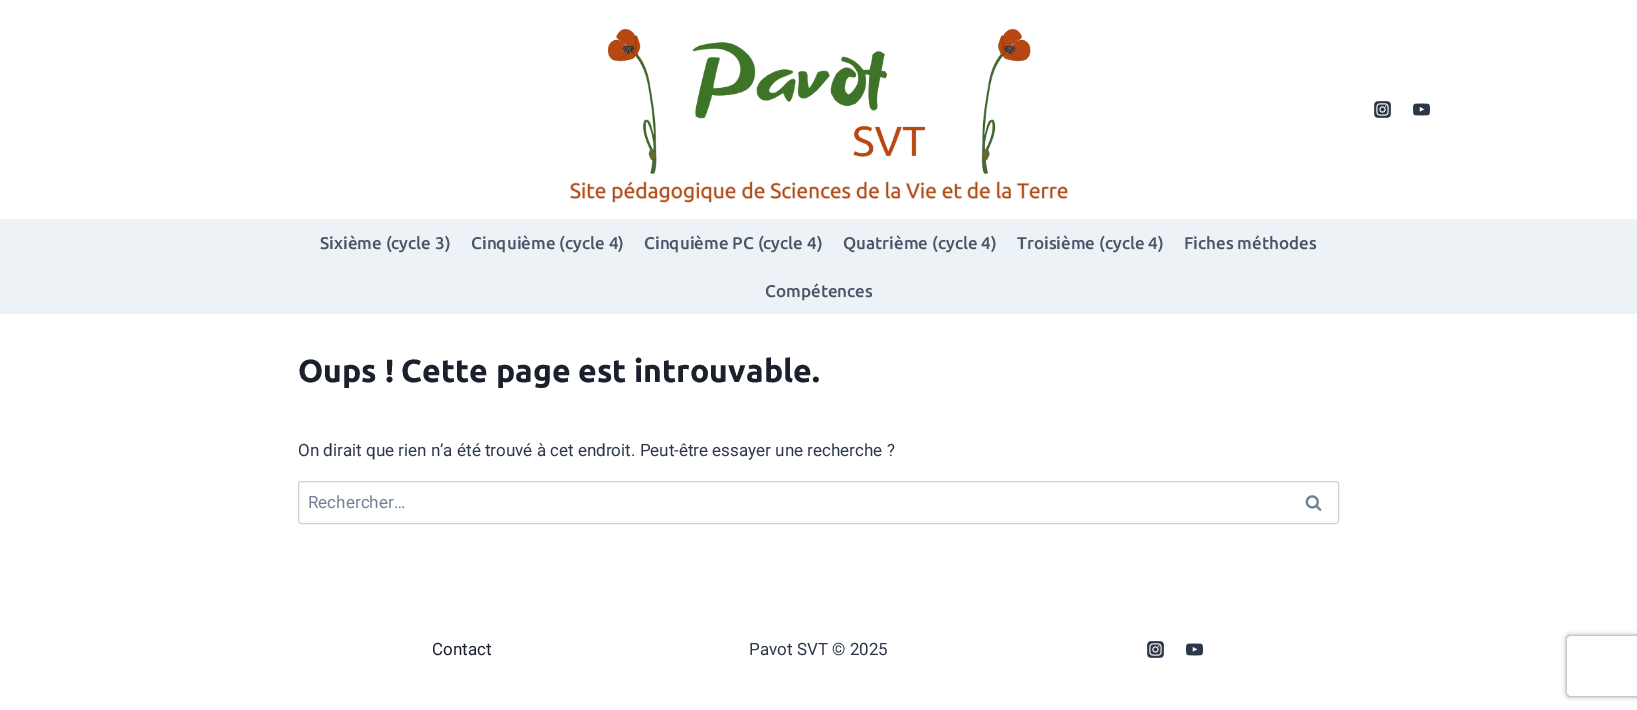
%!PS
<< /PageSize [1637 710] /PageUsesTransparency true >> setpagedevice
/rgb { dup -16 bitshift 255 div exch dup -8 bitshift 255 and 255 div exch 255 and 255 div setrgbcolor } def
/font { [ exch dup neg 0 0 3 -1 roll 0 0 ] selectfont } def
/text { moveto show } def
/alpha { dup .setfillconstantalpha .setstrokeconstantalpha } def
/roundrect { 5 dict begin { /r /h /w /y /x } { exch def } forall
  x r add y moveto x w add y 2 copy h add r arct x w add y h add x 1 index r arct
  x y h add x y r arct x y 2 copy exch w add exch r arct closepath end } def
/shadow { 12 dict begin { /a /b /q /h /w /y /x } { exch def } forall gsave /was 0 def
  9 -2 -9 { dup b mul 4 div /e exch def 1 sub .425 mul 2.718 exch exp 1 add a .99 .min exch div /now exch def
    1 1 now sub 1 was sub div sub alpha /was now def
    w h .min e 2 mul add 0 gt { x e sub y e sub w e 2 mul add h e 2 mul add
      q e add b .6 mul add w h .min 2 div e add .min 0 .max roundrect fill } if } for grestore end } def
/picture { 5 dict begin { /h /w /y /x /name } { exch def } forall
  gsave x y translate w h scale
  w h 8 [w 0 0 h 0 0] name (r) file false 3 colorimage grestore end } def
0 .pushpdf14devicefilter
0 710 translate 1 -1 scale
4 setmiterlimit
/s1 { /Ubuntu-Medium 17 font 16#4A5568 rgb } def
/s2 { /Ubuntu-Bold 32 font 16#1A202C rgb } def
/s3 { /Roboto-Regular 17 font 16#2D3748 rgb } def
/s4 { /Roboto-Regular 17 font 16#718096 rgb } def
/s5 { /Roboto-Regular 17 font 16#1A202C rgb } def
16#FFFFFF rgb
0 0 1637 710 rectfill
(pic1.raw) 569 29 499 174 picture
(pic2.raw) 1374 101 17 17 picture
(pic3.raw) 1413 103 17 13 picture
16#EDF2F7 rgb
0 219 1637 95 rectfill
s1
(Sixième \(cycle 3\)) 320 249 text
(Cinquième \(cycle 4\)) 471 249 text
(Cinquième PC \(cycle 4\)) 644 249 text
(Quatrième \(cycle 4\)) 843 249 text
(Troisième \(cycle 4\)) 1017 249 text
(Fiches méthodes) 1184 249 text
(Compétences) 765 297 text
s2
(Oups ! Cette page est introuvable.) 298 382 text
s3
(On dirait que rien n’a été trouvé à cet endroit. Peut-être essayer une recherche ?) 298 456 text
16#CBD5E0 rgb
298.5 481.5 1040 42 2.5 roundrect stroke
s4
(Rechercher…) 308 508 text
(pic4.raw) 1305 495 17 16 picture
s5
(Contact) 432 655 text
s3
(Pavot SVT © 2025) 749 655 text
(pic2.raw) 1147 641 17 17 picture
(pic3.raw) 1186 643 17 13 picture
gsave
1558 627 moveto 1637 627 lineto 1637 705 lineto 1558 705 lineto closepath 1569 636 moveto 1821 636 lineto 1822 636 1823 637 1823 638 curveto 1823 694 lineto 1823 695 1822 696 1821 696 curveto 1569 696 lineto 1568 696 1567 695 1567 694 curveto 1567 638 lineto 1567 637 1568 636 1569 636 curveto closepath eoclip newpath
16#808080 rgb
1567 636 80 60 2 2.5 1 shadow
grestore
.poppdf14devicefilter showpage
